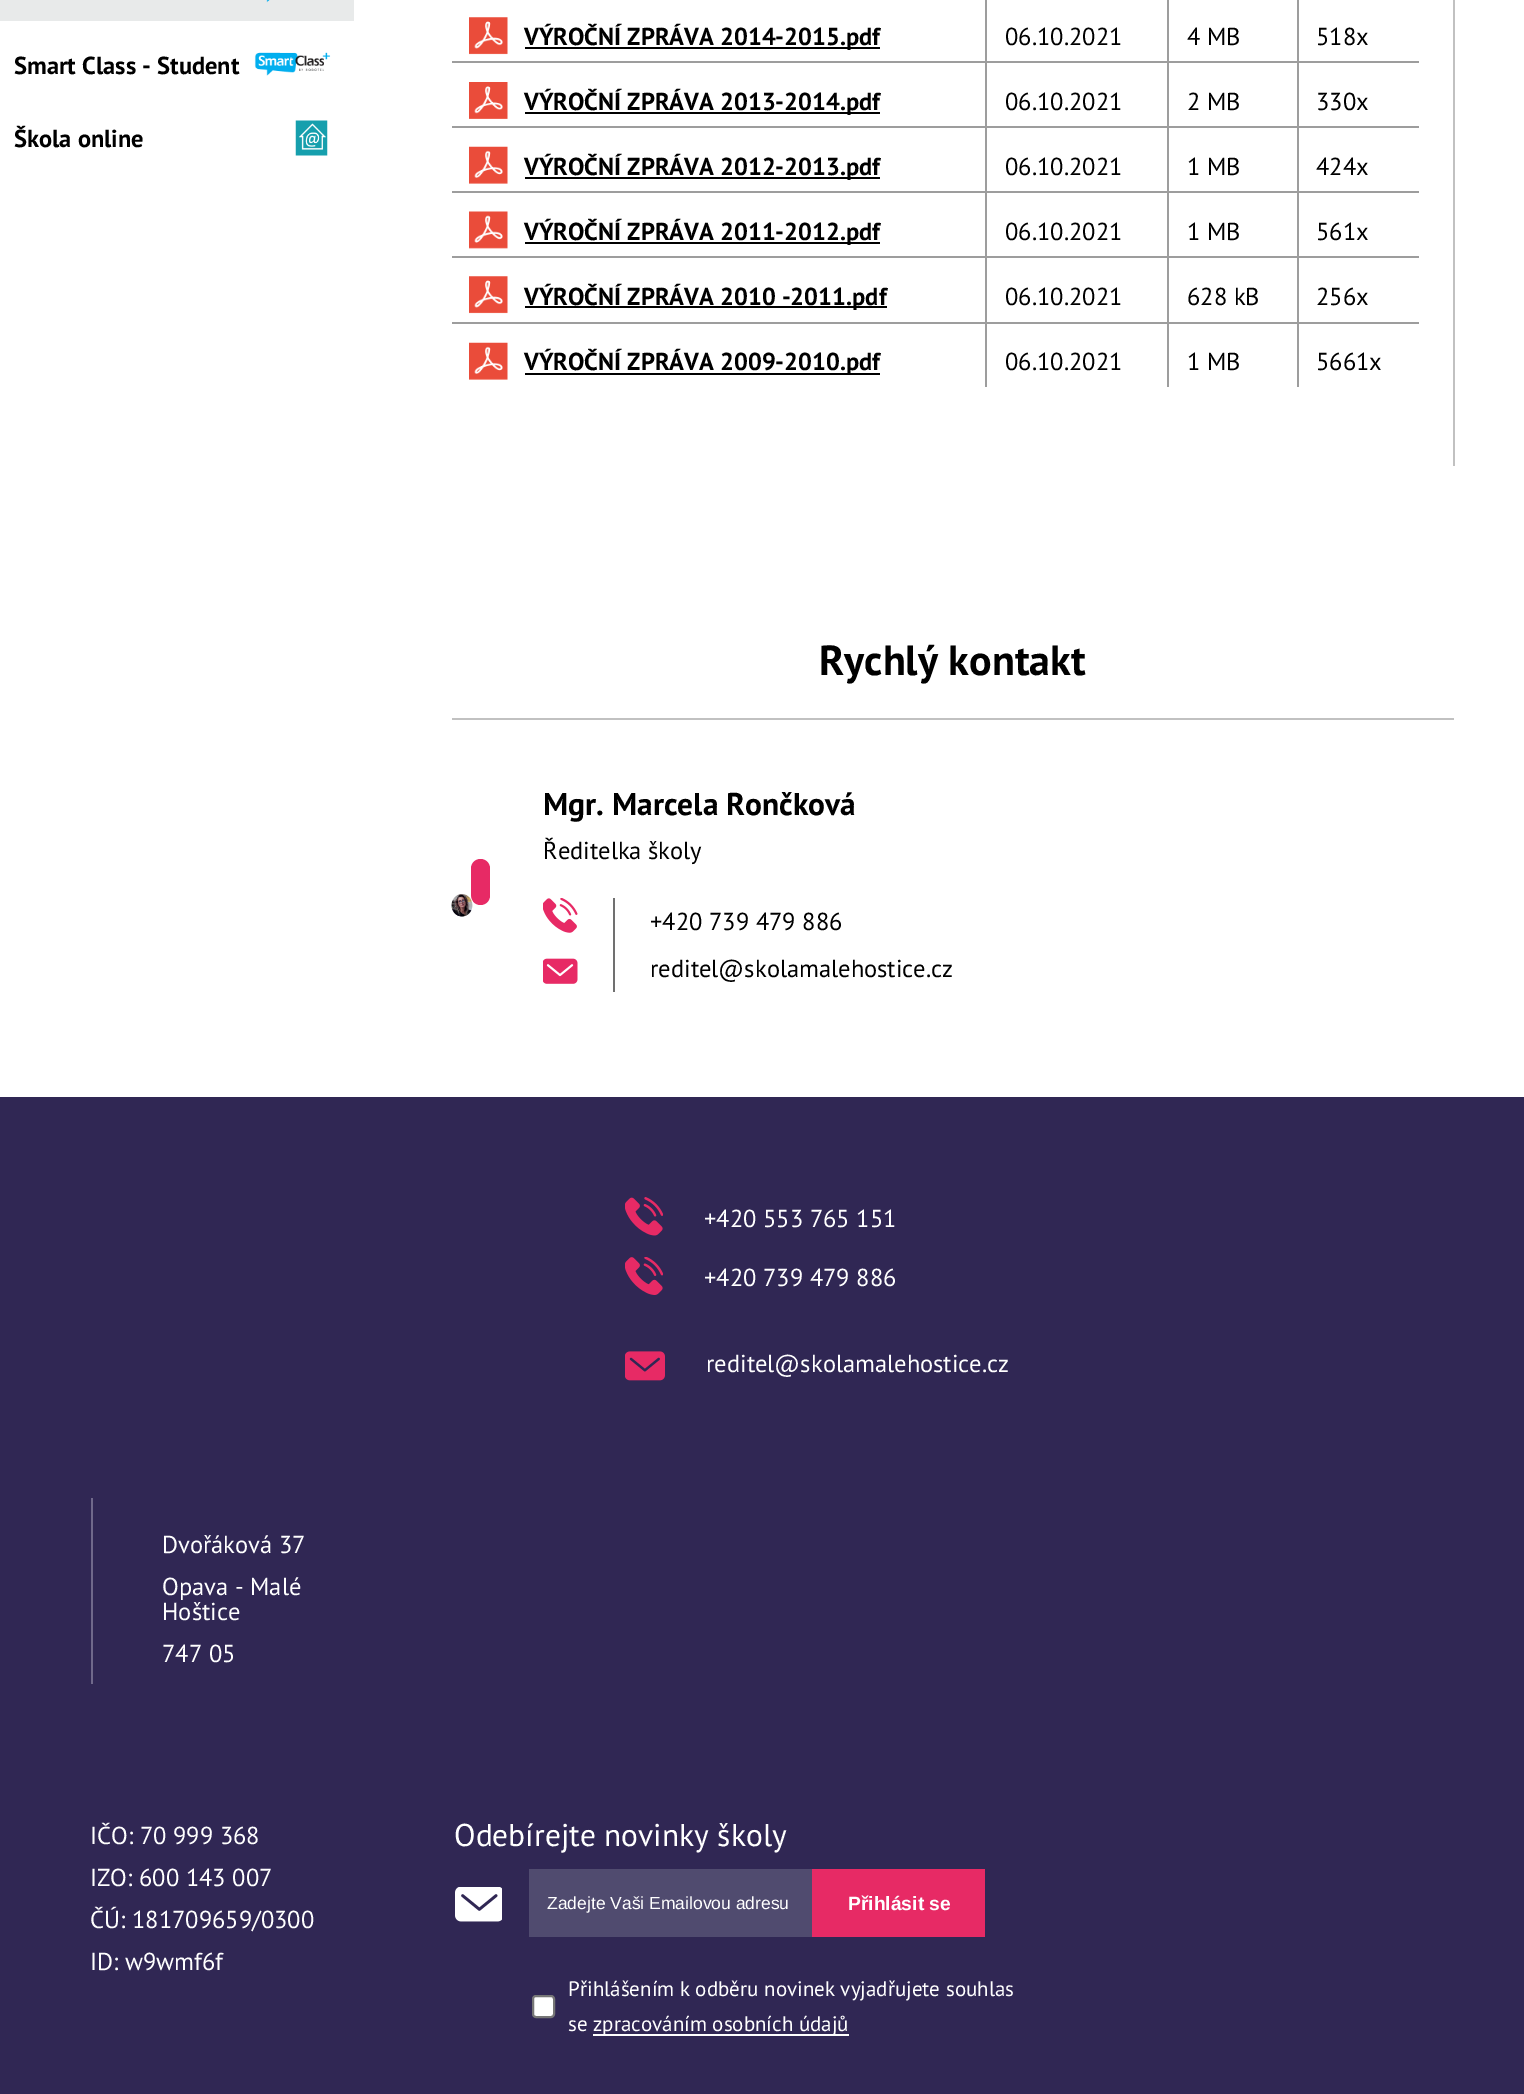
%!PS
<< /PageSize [1524 2094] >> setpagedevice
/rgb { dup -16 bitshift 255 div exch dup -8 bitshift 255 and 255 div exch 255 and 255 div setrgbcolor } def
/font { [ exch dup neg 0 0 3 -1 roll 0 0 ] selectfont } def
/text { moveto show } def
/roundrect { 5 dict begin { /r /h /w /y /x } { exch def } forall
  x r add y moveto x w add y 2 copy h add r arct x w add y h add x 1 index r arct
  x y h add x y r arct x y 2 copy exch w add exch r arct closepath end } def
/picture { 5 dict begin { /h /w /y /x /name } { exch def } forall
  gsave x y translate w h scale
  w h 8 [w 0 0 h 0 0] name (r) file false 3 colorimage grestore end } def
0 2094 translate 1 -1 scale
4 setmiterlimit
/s1 { /PTSans-Bold 24.5 font 16#000000 rgb } def
/s2 { /PTSans-Regular 24.5 font 16#000000 rgb } def
/s3 { /PTSans-Bold 42 font 16#000000 rgb } def
/s4 { /PTSans-Bold 31.5 font 16#000000 rgb } def
/s5 { /PTSans-Regular 24.5 font 16#FFFFFF rgb } def
/s6 { /PTSans-Regular 31.5 font 16#FFFFFF rgb } def
/s7 { /LiberationSans-Regular 17.5 font 16#FFFFFF rgb } def
/s8 { /LiberationSans-Bold 19.25 font 16#FFFFFF rgb } def
/s9 { /PTSans-Regular 21 font 16#FFFFFF rgb } def
16#FFFFFF rgb
0 0 1524 2094 rectfill
16#E8EAEA rgb
0 0 354 21 rectfill
(pic1.raw) 266 0 4 3 picture
(pic2.raw) 254 52 77 24 picture
s1
(Smart Class - Student) 14 74 text
(pic3.raw) 295 120 33 36 picture
(Škola online) 14 147 text
16#C1C1C1 rgb
1453 0 2 466 rectfill
16#9D9D9D rgb
1297 322 2 65 rectfill
1297 322 122 2 rectfill
1297 256 2 68 rectfill
1297 256 122 2 rectfill
1297 191 2 66 rectfill
1297 191 122 2 rectfill
1297 126 2 67 rectfill
1297 126 122 2 rectfill
1297 61 2 67 rectfill
1297 61 122 2 rectfill
1297 0 2 63 rectfill
1167 322 2 65 rectfill
1167 322 132 2 rectfill
1167 256 2 68 rectfill
1167 256 132 2 rectfill
1167 191 2 66 rectfill
1167 191 132 2 rectfill
1167 126 2 67 rectfill
1167 126 132 2 rectfill
1167 61 2 67 rectfill
1167 61 132 2 rectfill
1167 0 2 63 rectfill
985 322 2 65 rectfill
985 322 184 2 rectfill
985 256 2 68 rectfill
985 256 184 2 rectfill
985 191 2 66 rectfill
985 191 184 2 rectfill
985 126 2 67 rectfill
985 126 184 2 rectfill
985 61 2 67 rectfill
985 61 184 2 rectfill
985 0 2 63 rectfill
452 61 535 2 rectfill
(pic4.raw) 469 17 39 38 picture
16#000000 rgb
525 47 355 2 rectfill
(VÝROČNÍ ZPRÁVA 2014-2015.pdf) 524 45 text
s2
(06.10.2021) 1005 45 text
(4 MB) 1187 45 text
(518x) 1316 45 text
16#9D9D9D rgb
452 126 535 2 rectfill
(pic5.raw) 469 82 39 37 picture
16#000000 rgb
525 112 355 2 rectfill
s1
(VÝROČNÍ ZPRÁVA 2013-2014.pdf) 524 110 text
s2
(06.10.2021) 1005 110 text
(2 MB) 1187 110 text
(330x) 1316 110 text
16#9D9D9D rgb
452 191 535 2 rectfill
(pic6.raw) 469 146 39 38 picture
16#000000 rgb
525 177 355 2 rectfill
s1
(VÝROČNÍ ZPRÁVA 2012-2013.pdf) 524 175 text
s2
(06.10.2021) 1005 175 text
(1 MB) 1187 175 text
(424x) 1316 175 text
16#9D9D9D rgb
452 256 535 2 rectfill
(pic7.raw) 469 211 39 38 picture
16#000000 rgb
525 242 355 2 rectfill
s1
(VÝROČNÍ ZPRÁVA 2011-2012.pdf) 524 240 text
s2
(06.10.2021) 1005 240 text
(1 MB) 1187 240 text
(561x) 1316 240 text
16#9D9D9D rgb
452 322 535 2 rectfill
(pic4.raw) 469 276 39 38 picture
16#000000 rgb
525 306 362 2 rectfill
s1
(VÝROČNÍ ZPRÁVA 2010 -2011.pdf) 524 305 text
s2
(06.10.2021) 1005 305 text
(628 kB) 1187 305 text
(256x) 1316 305 text
(pic6.raw) 469 342 39 38 picture
525 373 355 2 rectfill
s1
(VÝROČNÍ ZPRÁVA 2009-2010.pdf) 524 370 text
s2
(06.10.2021) 1005 370 text
(1 MB) 1187 370 text
(5661x) 1316 370 text
16#C1C1C1 rgb
452 718 1002 2 rectfill
s3
(Rychlý kontakt) 819 675 text
16#E72A65 rgb
471 859 19 46 9.5 roundrect fill
(pic8.raw) 451 894 22 23 picture
s4
(Mgr. Marcela Rončková) 543 815 text
s2
(Ředitelka školy) 543 859 text
16#707070 rgb
613 898 2 94 rectfill
(pic9.raw) 543 898 35 35 picture
s2
(+420 739 479 886) 650 930 text
(pic10.raw) 543 958 35 26 picture
(reditel@skolamalehostice.cz) 650 977 text
16#302754 rgb
0 1097 1524 997 rectfill
(pic11.raw) 625 1197 38 39 picture
s5
(+420 553 765 151) 704 1227 text
(pic12.raw) 625 1257 38 38 picture
(+420 739 479 886) 704 1286 text
(pic13.raw) 625 1351 40 30 picture
(reditel@skolamalehostice.cz) 706 1372 text
16#70698B rgb
91 1498 2 186 rectfill
s5
(Dvořáková 37) 162 1553 text
(Opava - Malé) 162 1595 text
(Hoštice) 162 1620 text
(747 05) 162 1662 text
(IČO: 70 999 368) 90 1844 text
(IZO: 600 143 007) 90 1886 text
(ČÚ: 181709659/0300) 90 1928 text
(ID: w9wmf6f) 90 1970 text
s6
(Odebírejte novinky školy) 454 1846 text
(pic14.raw) 455 1887 47 35 picture
16#504B6F rgb
529 1869 283 68 rectfill
s7
(Zadejte Vaši Emailovou adresu) 547 1909 text
16#E72A65 rgb
812 1869 173 68 rectfill
s8
(Přihlásit se) 848 1910 text
533 1996 21 21 3 roundrect gsave fill grestore
16#767676 rgb
2 setlinewidth
stroke
s9
(Přihlášením k odběru novinek vyjadřujete souhlas) 568 1996 text
(se) 568 2031 text
593 2034 256 2 rectfill
(zpracováním osobních údajů) 593 2031 text
showpage
